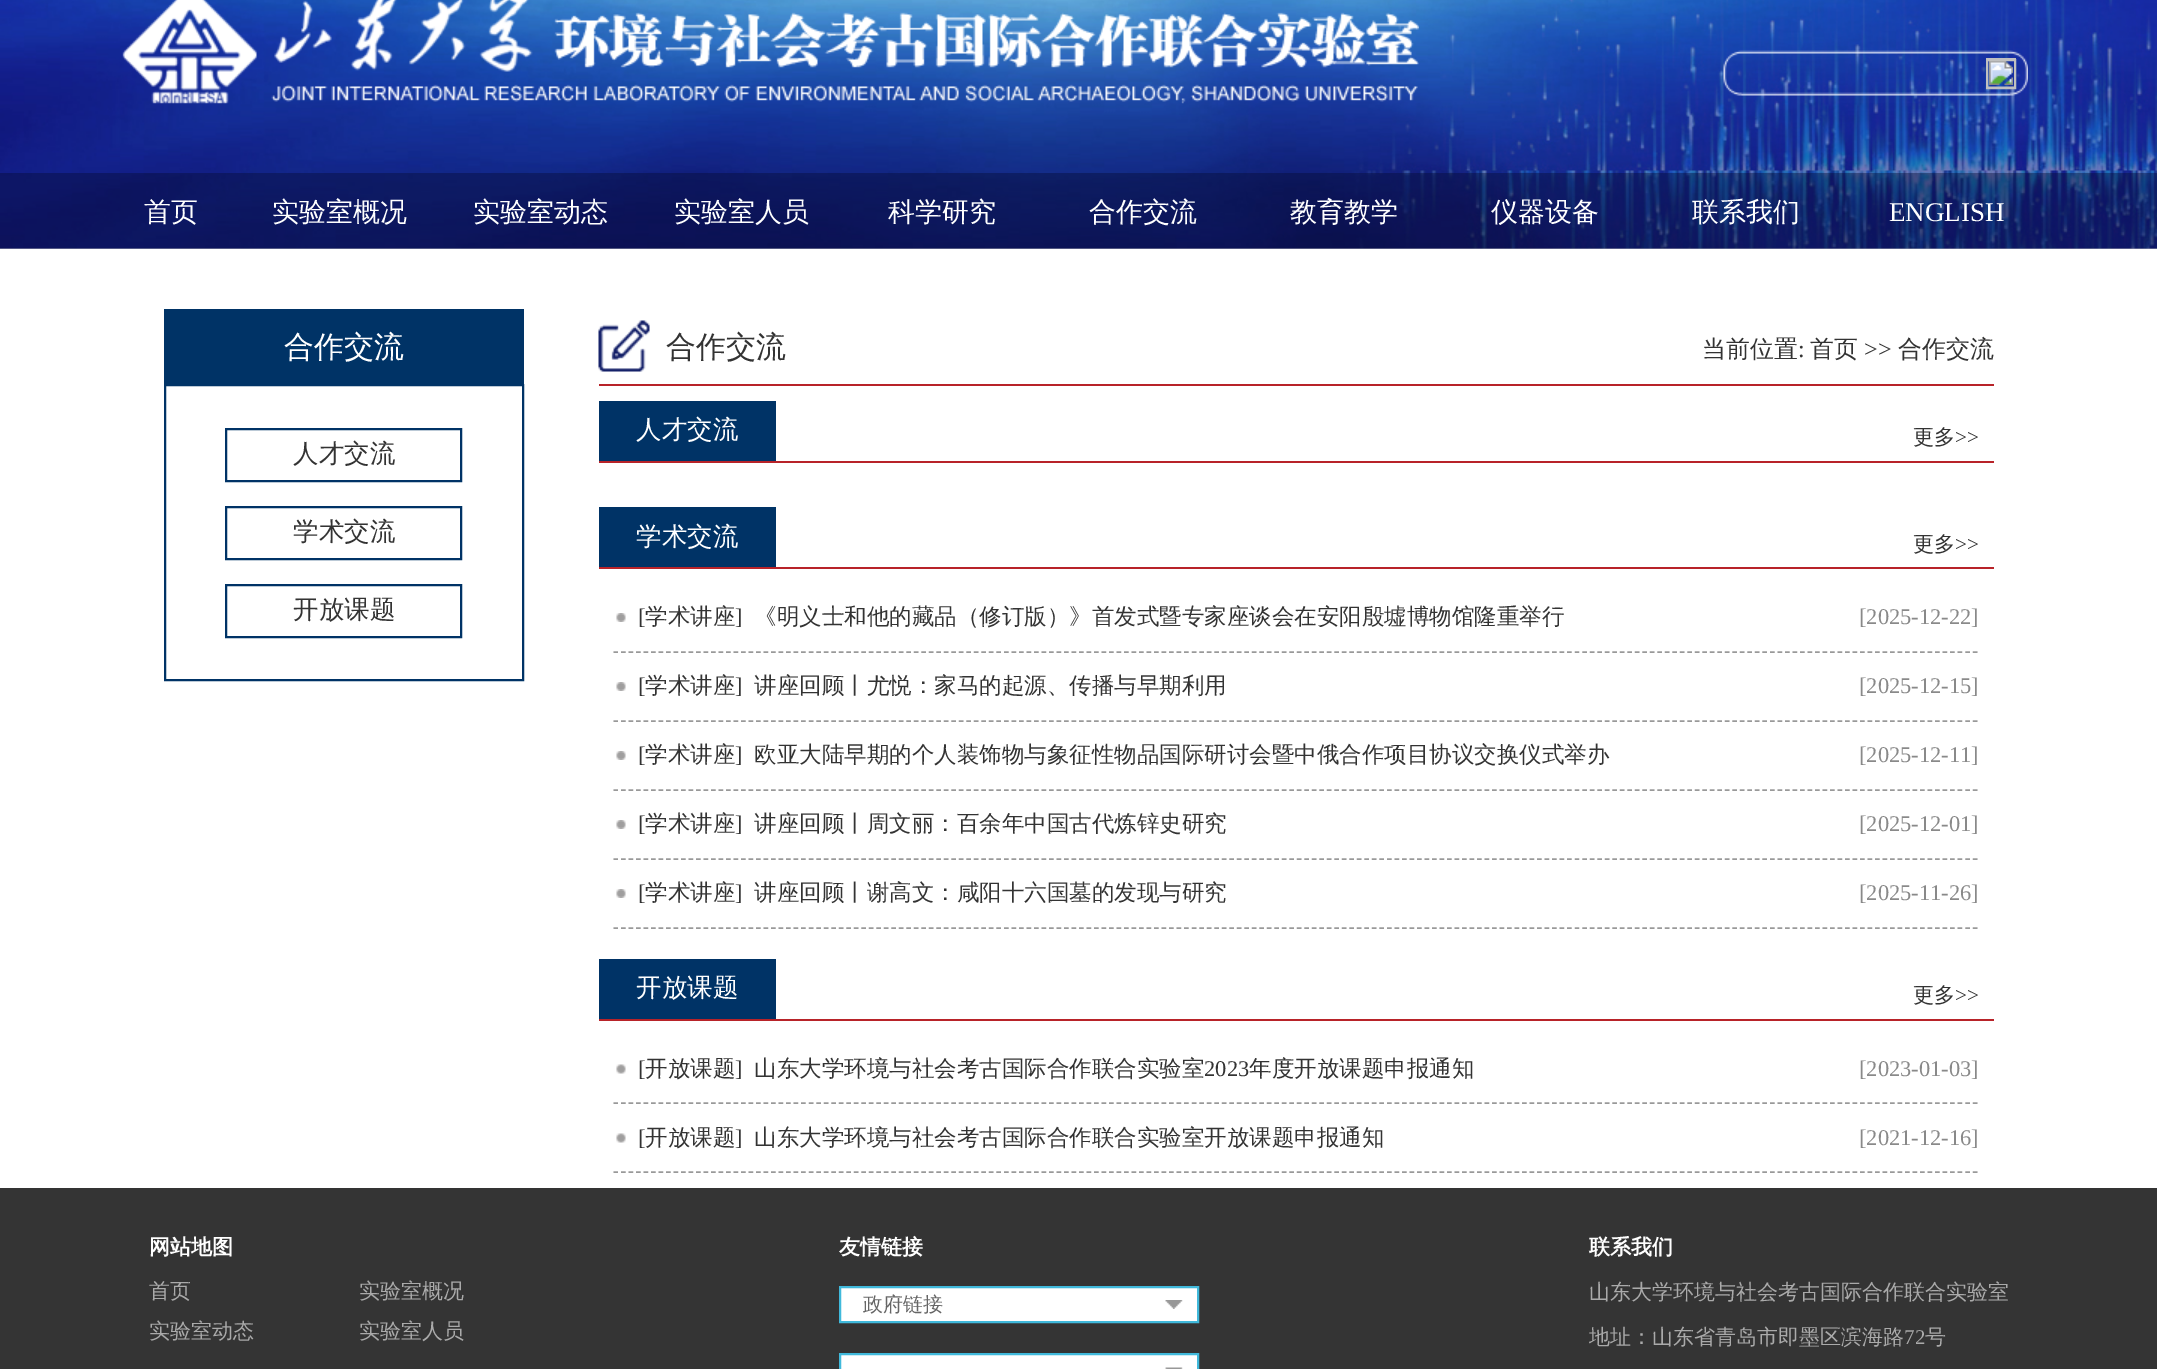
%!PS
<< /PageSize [2157 1369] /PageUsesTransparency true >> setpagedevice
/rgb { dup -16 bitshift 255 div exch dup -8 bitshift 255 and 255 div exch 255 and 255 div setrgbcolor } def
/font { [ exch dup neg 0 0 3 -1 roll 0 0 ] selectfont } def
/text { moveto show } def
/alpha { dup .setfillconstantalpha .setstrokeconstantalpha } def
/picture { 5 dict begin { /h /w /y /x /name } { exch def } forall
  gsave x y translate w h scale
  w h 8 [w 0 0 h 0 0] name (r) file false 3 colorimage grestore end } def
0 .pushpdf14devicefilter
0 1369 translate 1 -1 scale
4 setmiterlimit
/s1 { /WenQuanYiZenHei-Medium 27 font 16#FFFFFF rgb } def
/s2 { /LiberationSerif-Regular 27 font 16#FFFFFF rgb } def
/s3 { /WenQuanYiZenHei-Medium 30 font 16#FFFFFF rgb } def
/s4 { /WenQuanYiZenHei-Medium 25.5 font 16#333333 rgb } def
/s5 { /WenQuanYiZenHei-Medium 30 font 16#333333 rgb } def
/s6 { /WenQuanYiZenHei-Medium 24 font 16#333333 rgb } def
/s7 { /LiberationSerif-Regular 24 font 16#333333 rgb } def
/s8 { /WenQuanYiZenHei-Medium 25.5 font 16#FFFFFF rgb } def
/s9 { /WenQuanYiZenHei-Medium 21 font 16#333333 rgb } def
/s10 { /LiberationSerif-Regular 21 font 16#333333 rgb } def
/s11 { /LiberationSerif-Regular 22.5 font 16#333333 rgb } def
/s12 { /WenQuanYiZenHei-Medium 22.5 font 16#333333 rgb } def
/s13 { /LiberationSerif-Regular 22.5 font 16#898989 rgb } def
/s14 { /WenQuanYiZenHei-Bold 21 font 16#FFFFFF rgb } def
/s15 { /WenQuanYiZenHei-Medium 21 font 16#AAAAAA rgb } def
/s16 { /WenQuanYiZenHei-Medium 20 font 16#666666 rgb } def
/s17 { /LiberationSerif-Regular 21 font 16#AAAAAA rgb } def
16#FFFFFF rgb
0 0 2157 1369 rectfill
(pic1.raw) 0 0 2157 249 picture
(pic2.raw) 122 0 1297 104 picture
(pic3.raw) 1723 50 305 46 picture
(pic4.raw) 1986 58 30 29 picture
16#C0C0C0 rgb
2 setlinewidth
1987 60 28 28 rectstroke
0.4 alpha
16#050A32 rgb
0 173 2157 76 rectfill
1 alpha
s1
(首页) 144 221 text
(实验室概况) 272 221 text
(实验室动态) 473 221 text
(实验室人员) 674 221 text
(科学研究) 888 221 text
(合作交流) 1089 221 text
(教育教学) 1290 221 text
(仪器设备) 1491 221 text
(联系我们) 1692 221 text
s2
(ENGLISH) 1889 221 text
16#003366 rgb
164 309 360 75 rectfill
s3
(合作交流) 284 357 text
16#003366 rgb
165 385 358 295 rectstroke
226 429 235 52 rectstroke
s4
(人才交流) 293 462 text
16#003366 rgb
226 507 235 52 rectstroke
s4
(学术交流) 293 540 text
16#003366 rgb
226 585 235 52 rectstroke
s4
(开放课题) 293 618 text
16#B82329 rgb
599 384 1395 2 rectfill
(pic5.raw) 598 320 52 52 picture
s5
(合作交流) 666 357 text
s6
(当前位置) 1702 357 text
s7
(:) 1798 357 text
s6
(首页) 1810 357 text
s7
(>>) 1864 357 text
s6
(合作交流) 1898 357 text
16#B82329 rgb
599 461 1395 2 rectfill
16#003366 rgb
599 401 177 60 rectfill
s8
(人才交流) 636 438 text
s9
(更多) 1913 444 text
s10
(>>) 1955 444 text
16#B82329 rgb
599 567 1395 2 rectfill
16#003366 rgb
599 507 177 60 rectfill
s8
(学术交流) 636 545 text
s9
(更多) 1913 551 text
s10
(>>) 1955 551 text
(pic6.raw) 616 613 10 9 picture
16#999999 rgb
1.5 setlinewidth
[4.5 3.01] 0 setdash
613.5 652 moveto 1978.5 652 lineto stroke
s11
([) 638 624 text
s12
(学术讲座) 645 624 text
s11
(]) 735 624 text
s12
(《明义士和他的藏品（修订版）》首发式暨专家座谈会在安阳殷墟博物馆隆重举行) 754 624 text
s13
([2025-12-22]) 1859 624 text
(pic6.raw) 616 682 10 9 picture
16#999999 rgb
613.5 721 moveto 1978.5 721 lineto stroke
s11
([) 638 693 text
s12
(学术讲座) 645 693 text
s11
(]) 735 693 text
s12
(讲座回顾丨尤悦：家马的起源、传播与早期利用) 754 693 text
s13
([2025-12-15]) 1859 693 text
(pic6.raw) 616 751 10 9 picture
16#999999 rgb
613.5 790 moveto 1978.5 790 lineto stroke
s11
([) 638 762 text
s12
(学术讲座) 645 762 text
s11
(]) 735 762 text
s12
(欧亚大陆早期的个人装饰物与象征性物品国际研讨会暨中俄合作项目协议交换仪式举办) 754 762 text
s13
([2025-12-11]) 1859 762 text
(pic6.raw) 616 820 10 9 picture
16#999999 rgb
613.5 859 moveto 1978.5 859 lineto stroke
s11
([) 638 831 text
s12
(学术讲座) 645 831 text
s11
(]) 735 831 text
s12
(讲座回顾丨周文丽：百余年中国古代炼锌史研究) 754 831 text
s13
([2025-12-01]) 1859 831 text
(pic6.raw) 616 889 10 9 picture
16#999999 rgb
613.5 928 moveto 1978.5 928 lineto stroke
s11
([) 638 900 text
s12
(学术讲座) 645 900 text
s11
(]) 735 900 text
s12
(讲座回顾丨谢高文：咸阳十六国墓的发现与研究) 754 900 text
s13
([2025-11-26]) 1859 900 text
16#B82329 rgb
599 1019 1395 2 rectfill
16#003366 rgb
599 959 177 60 rectfill
s8
(开放课题) 636 996 text
s9
(更多) 1913 1002 text
s10
(>>) 1955 1002 text
(pic7.raw) 616 1064 10 10 picture
16#999999 rgb
613.5 1103 moveto 1978.5 1103 lineto stroke
s11
([) 638 1076 text
s12
(开放课题) 645 1076 text
s11
(]) 735 1076 text
s12
(山东大学环境与社会考古国际合作联合实验室) 754 1076 text
s11
(2023) 1204 1076 text
s12
(年度开放课题申报通知) 1249 1076 text
s13
([2023-01-03]) 1859 1076 text
(pic7.raw) 616 1133 10 10 picture
16#999999 rgb
613.5 1172 moveto 1978.5 1172 lineto stroke
s11
([) 638 1145 text
s12
(开放课题) 645 1145 text
s11
(]) 735 1145 text
s12
(山东大学环境与社会考古国际合作联合实验室开放课题申报通知) 754 1145 text
s13
([2021-12-16]) 1859 1145 text
16#343434 rgb
0 1188 2157 181 rectfill
s14
(网站地图) 149 1254 text
s15
(首页) 149 1298 text
(实验室概况) 359 1298 text
(实验室动态) 149 1338 text
(实验室人员) 359 1338 text
s14
(友情链接) 839 1254 text
841 1288 356 33 rectfill
(pic8.raw) 1165 1300 18 9 picture
16#40B9DB rgb
2 setlinewidth
[] 0 setdash
840 1287 358 35 rectstroke
s16
(政府链接) 863 1311 text
16#FFFFFF rgb
841 1355 356 14 rectfill
(pic9.raw) 1165 1367 18 2 picture
16#40B9DB rgb
840 1354 358 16 rectstroke
s14
(联系我们) 1589 1254 text
s15
(山东大学环境与社会考古国际合作联合实验室) 1589 1299 text
(地址：山东省青岛市即墨区滨海路) 1589 1344 text
s17
(72) 1904 1344 text
s15
(号) 1925 1344 text
.poppdf14devicefilter showpage
